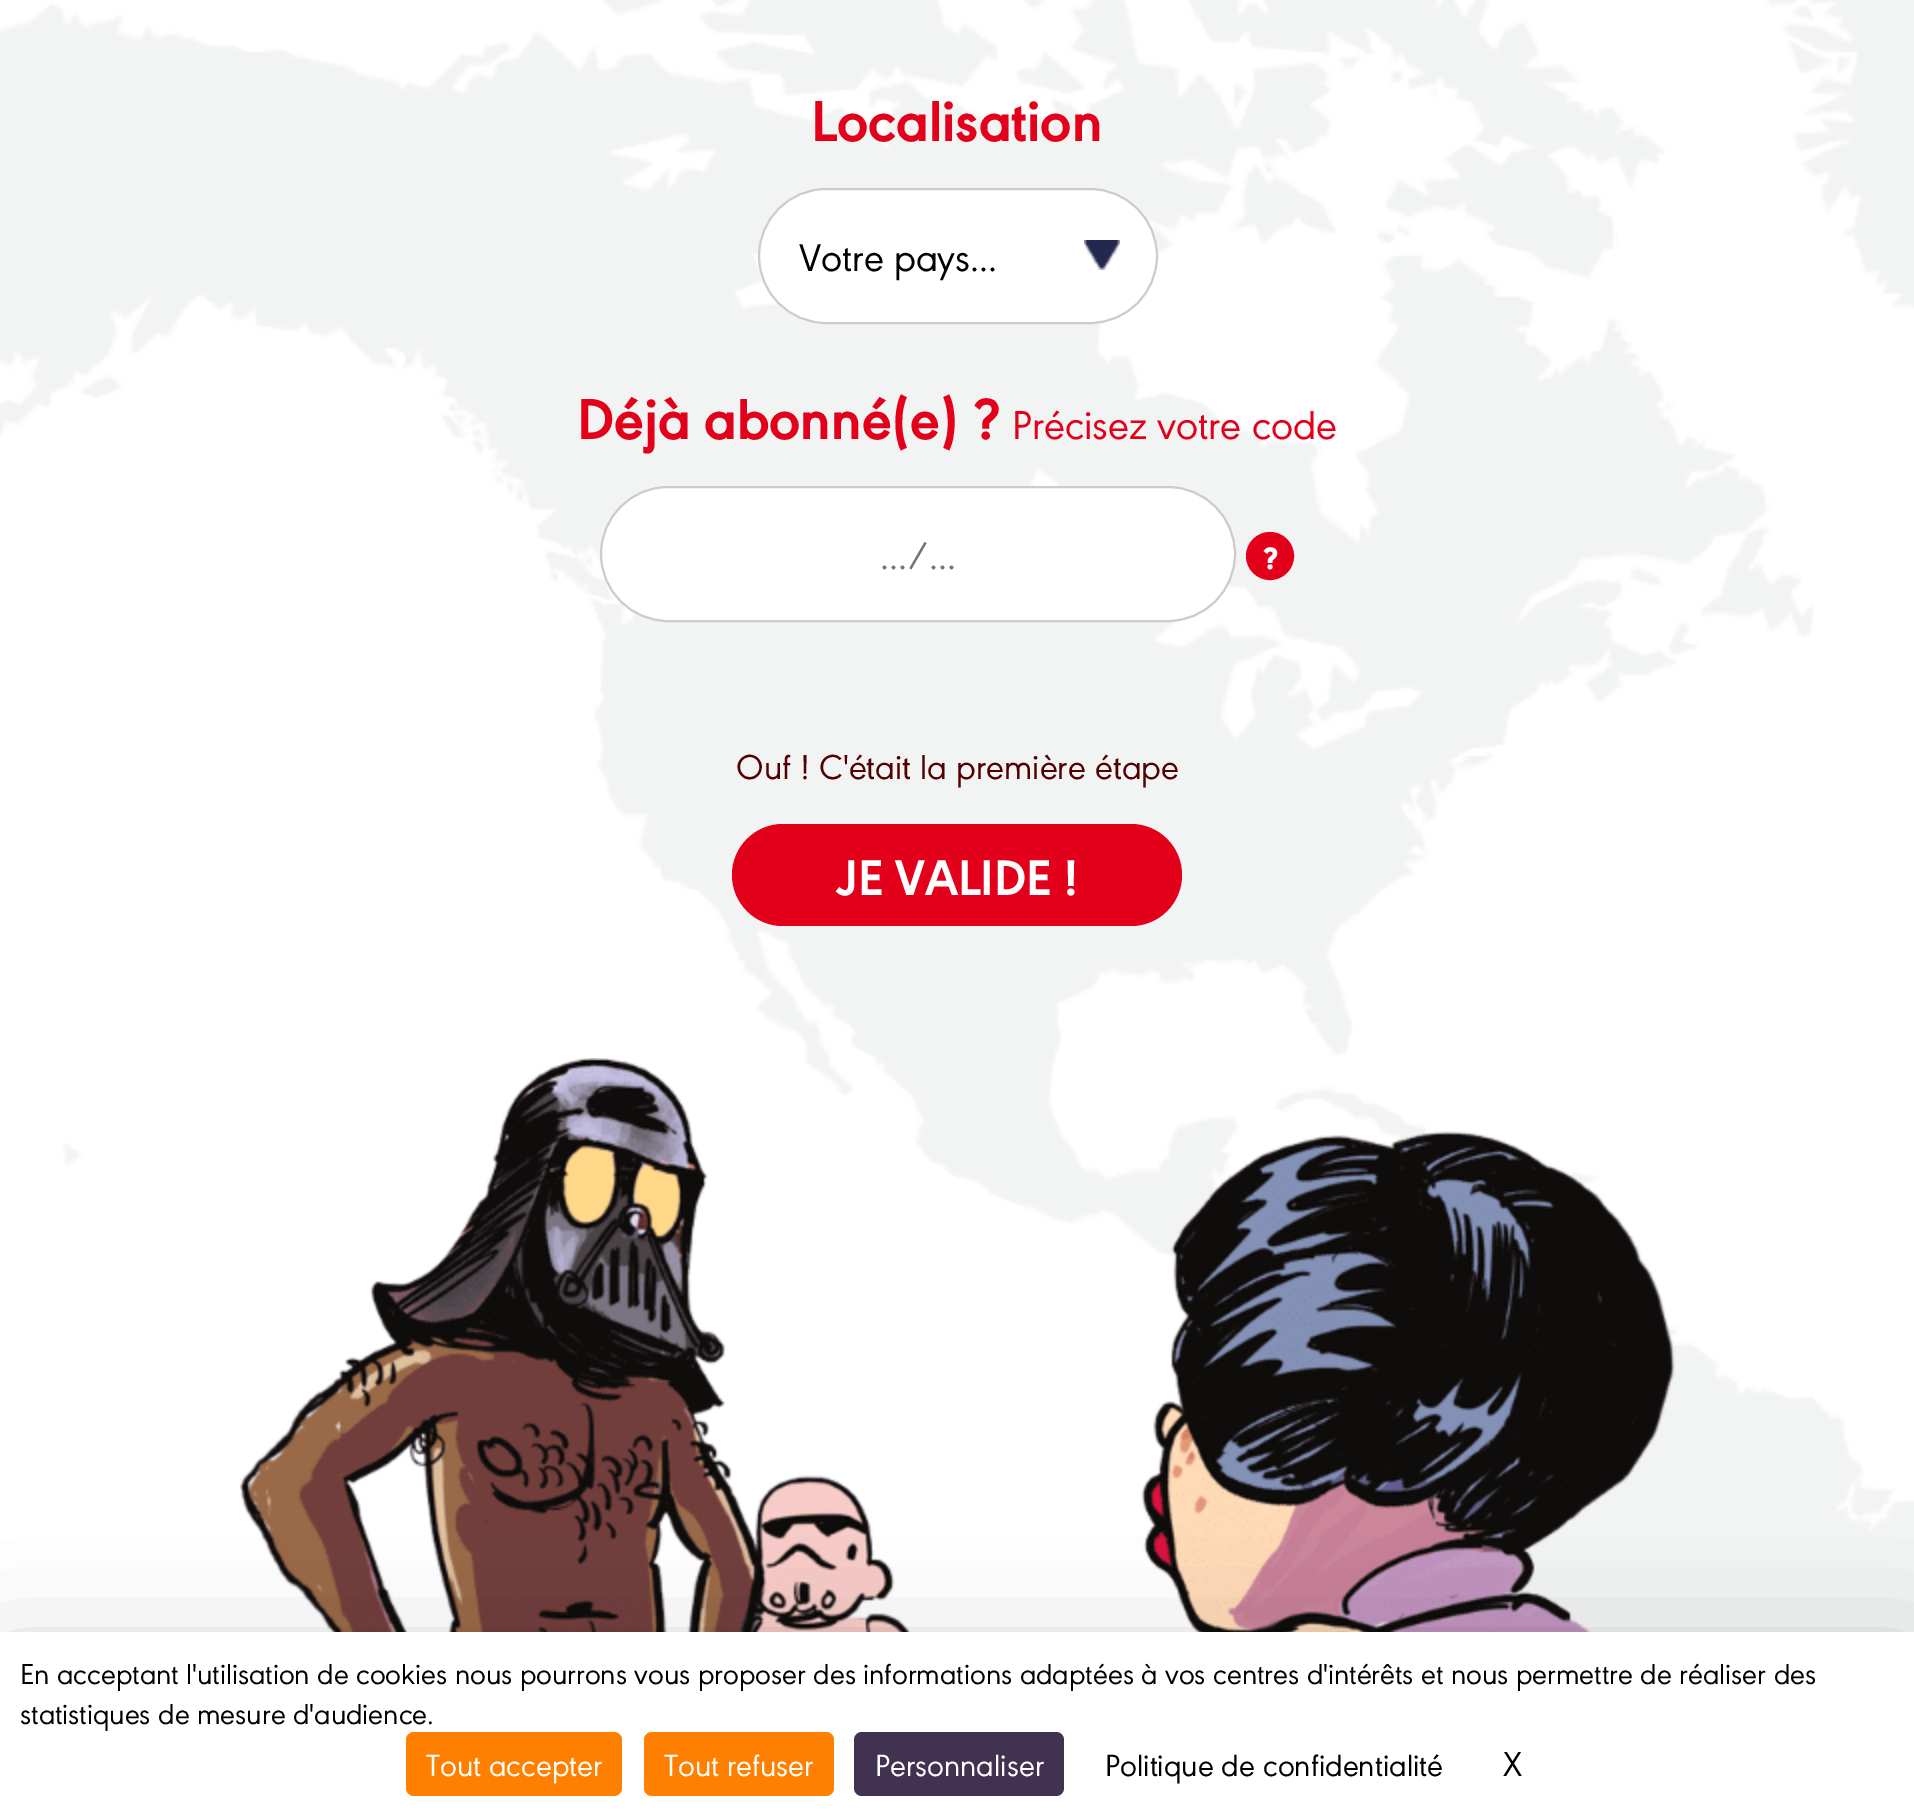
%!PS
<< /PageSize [1914 1816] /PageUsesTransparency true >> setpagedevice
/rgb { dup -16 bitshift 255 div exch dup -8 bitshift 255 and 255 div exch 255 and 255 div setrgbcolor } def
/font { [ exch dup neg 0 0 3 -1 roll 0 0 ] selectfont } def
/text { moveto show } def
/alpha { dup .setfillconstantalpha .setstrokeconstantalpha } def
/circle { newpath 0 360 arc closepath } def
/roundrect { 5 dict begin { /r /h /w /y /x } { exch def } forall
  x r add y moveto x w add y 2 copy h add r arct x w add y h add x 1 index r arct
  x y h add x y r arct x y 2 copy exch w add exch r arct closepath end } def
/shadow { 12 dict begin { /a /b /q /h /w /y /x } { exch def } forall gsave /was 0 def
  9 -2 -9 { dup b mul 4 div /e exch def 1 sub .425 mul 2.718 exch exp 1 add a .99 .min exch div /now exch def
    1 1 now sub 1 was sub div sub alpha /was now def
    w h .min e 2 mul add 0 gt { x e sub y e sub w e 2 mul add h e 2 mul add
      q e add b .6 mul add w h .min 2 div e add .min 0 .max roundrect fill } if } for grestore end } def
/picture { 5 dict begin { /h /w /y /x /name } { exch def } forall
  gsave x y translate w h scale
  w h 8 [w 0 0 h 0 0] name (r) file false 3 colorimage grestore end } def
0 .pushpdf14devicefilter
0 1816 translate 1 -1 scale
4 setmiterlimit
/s1 { /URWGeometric-Bold 60 font 16#E2001A rgb } def
/s2 { /URWGeometric-Regular 40 font 16#000000 rgb } def
/s3 { /URWGeometric-Regular 42 font 16#E2001A rgb } def
/s4 { /URWGeometric-Regular 40 font 16#757575 rgb } def
/s5 { /URWGeometric-Black 32 font 16#FFFFFF rgb } def
/s6 { /URWGeometric-Regular 36 font 16#530000 rgb } def
/s7 { /URWGeometric-Bold 52 font 16#FFFFFF rgb } def
/s8 { /URWGeometric-Regular 30 font 16#000000 rgb } def
/s9 { /URWGeometric-Regular 32 font 16#FFFFFF rgb } def
/s10 { /URWGeometric-Regular 32 font 16#000000 rgb } def
/s11 { /URWGeometric-Regular 36 font 16#000000 rgb } def
16#FFFFFF rgb
0 0 1914 1816 rectfill
(pic1.raw) 0 0 1914 1632 picture
s1
(Localisation) 811 141 text
16#FFFFFF rgb
758 188 400 136 68 roundrect fill
(pic2.raw) 1084 240 36 30 picture
16#CCCCCC rgb
2 setlinewidth
759 189 398 134 67 roundrect stroke
s2
(Votre pays...) 799 271 text
s1
(Déjà abonné\(e\) ?) 577 439 text
s3
(Précisez votre code) 1012 439 text
16#FFFFFF rgb
601 487 634 134 67 roundrect gsave fill grestore
16#CCCCCC rgb
stroke
s4
(.../...) 880 569 text
16#E2001A rgb
1270 556 22 circle gsave fill grestore
4 setlinewidth
stroke
s5
(?) 1263 569 text
s6
(Ouf ! C'était la première étape) 736 779 text
16#E2001A rgb
732 824 450 102 51 roundrect fill
s7
(JE VALIDE !) 836 895 text
(pic3.raw) 240 1058 1435 574 picture
16#000000 rgb
0 1672 1914 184 0 60 0.25 shadow
16#FFFFFF rgb
0 1632 1914 184 rectfill
s8
(En acceptant l'utilisation de cookies nous pourrons vous proposer des informations adaptées à vos centres d'intérêts et nous permettre de réaliser des) 20 1684 text
(statistiques de mesure d'audience.) 20 1724 text
16#FF8000 rgb
406 1732 216 64 8 roundrect fill
s9
(Tout accepter) 426 1776 text
16#FF8000 rgb
644 1732 190 64 8 roundrect fill
s9
(Tout refuser) 664 1776 text
16#423252 rgb
854 1732 210 64 8 roundrect fill
s9
(Personnaliser) 875 1776 text
s10
(Politique de confidentialité) 1105 1776 text
s11
(X) 1503 1776 text
.poppdf14devicefilter showpage
